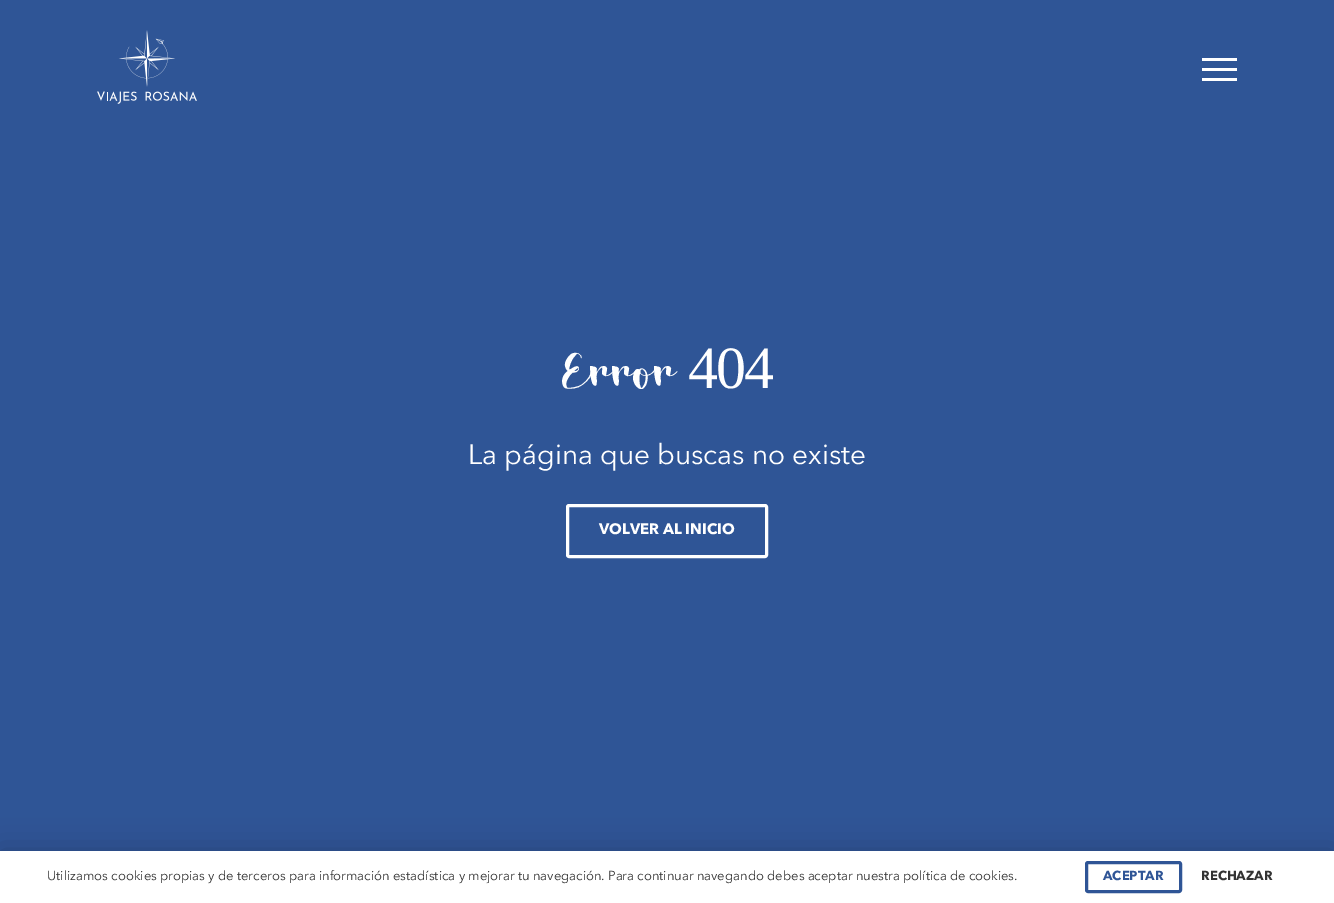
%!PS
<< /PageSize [1334 903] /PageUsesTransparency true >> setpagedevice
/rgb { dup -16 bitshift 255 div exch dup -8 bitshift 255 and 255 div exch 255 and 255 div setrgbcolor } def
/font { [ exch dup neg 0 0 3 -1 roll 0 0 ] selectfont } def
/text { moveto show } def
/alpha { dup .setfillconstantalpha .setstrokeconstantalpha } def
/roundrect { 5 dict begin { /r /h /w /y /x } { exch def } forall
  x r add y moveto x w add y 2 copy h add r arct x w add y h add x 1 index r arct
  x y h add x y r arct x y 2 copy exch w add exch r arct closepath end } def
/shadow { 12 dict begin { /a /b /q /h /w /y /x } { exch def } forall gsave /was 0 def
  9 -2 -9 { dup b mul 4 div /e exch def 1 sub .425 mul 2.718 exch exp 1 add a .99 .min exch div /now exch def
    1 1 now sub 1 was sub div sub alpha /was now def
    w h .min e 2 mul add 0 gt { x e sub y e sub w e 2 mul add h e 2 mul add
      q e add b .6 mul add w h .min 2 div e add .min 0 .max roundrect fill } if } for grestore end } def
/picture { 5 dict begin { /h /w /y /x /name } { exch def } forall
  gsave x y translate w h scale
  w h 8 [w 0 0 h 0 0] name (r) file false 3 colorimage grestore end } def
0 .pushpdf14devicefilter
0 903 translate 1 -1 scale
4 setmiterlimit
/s1 { /AvenirNext-Regular 28 font 16#FFFFFF rgb } def
/s2 { /AvenirNext-Bold 15 font 16#FFFFFF rgb } def
/s3 { /AvenirNext-Regular 13 font 16#333333 rgb } def
/s4 { /AvenirNext-Bold 13 font 16#2F5596 rgb } def
/s5 { /AvenirNext-Bold 13 font 16#333333 rgb } def
16#2F5596 rgb
0 0 1334 903 rectfill
(pic1.raw) 97 30 100 74 picture
16#FFFFFF rgb
1202 58 35 3 rectfill
1202 68 35 3 rectfill
1202 78 35 3 rectfill
/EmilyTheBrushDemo-Regular 60 font
562 388 moveto -2 0 (Error) ashow
/LiberationSerif-Regular 60 font
688 388 moveto -2 0 (404) ashow
s1
(La página que buscas no existe) 468 464 text
3 setlinewidth
567.5 505.5 199 51 1.5 roundrect stroke
s2
(VOLVER AL INICIO) 599 534 text
16#000000 rgb
0 851 1334 52 0 15 0.2 shadow
16#FFFFFF rgb
0 851 1334 52 rectfill
s3
(Utilizamos cookies propias y de terceros para información estadística y mejorar tu navegación. Para continuar navegando debes aceptar nuestra política de cookies.) 47 880 text
16#2F5596 rgb
1086.5 862.5 94 29 1.5 roundrect stroke
s4
(ACEPTAR) 1103 880 text
s5
(RECHAZAR) 1201 880 text
.poppdf14devicefilter showpage
